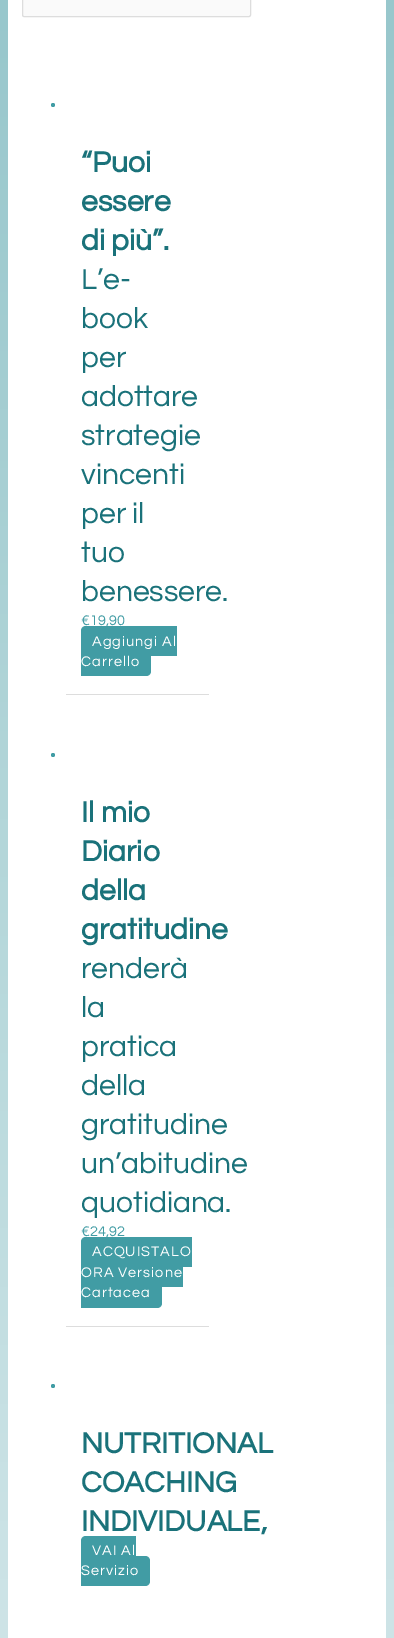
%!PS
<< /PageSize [394 1638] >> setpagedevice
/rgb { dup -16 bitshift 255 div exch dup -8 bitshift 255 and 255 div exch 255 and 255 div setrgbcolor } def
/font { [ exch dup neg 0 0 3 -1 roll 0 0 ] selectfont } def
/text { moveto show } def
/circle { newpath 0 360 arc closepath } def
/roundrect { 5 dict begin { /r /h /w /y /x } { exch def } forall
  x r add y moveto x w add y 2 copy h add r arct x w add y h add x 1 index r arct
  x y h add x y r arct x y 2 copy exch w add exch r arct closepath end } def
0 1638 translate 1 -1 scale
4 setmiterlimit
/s1 { /Questrial-Bold 30 font 16#1A727A rgb } def
/s2 { /Questrial-Regular 30 font 16#1A727A rgb } def
/s3 { /Questrial-Regular 14.5 font 16#419CA4 rgb } def
16#FFFFFF rgb
0 0 394 1638 rectfill
gsave 0 0 moveto 394 0 lineto 394 1638 lineto 0 1638 lineto closepath clip newpath
<< /ShadingType 2 /ColorSpace /DeviceRGB /Coords [197 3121 197 -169] /Extend [true true] /Function << /FunctionType 2 /Domain [0 1] /C0 [1 1 1] /C1 [0.573 0.769 0.788] /N 1 >> >> shfill grestore
8 0 378 1638 rectfill
16#FAFAFA rgb
22.5 -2.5 228 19 1.5 roundrect gsave fill grestore
16#DDDDDD rgb
stroke
66 694 143 1 rectfill
16#419CA4 rgb
53 105 2 circle fill
s1
(“Puoi) 81 172 text
(essere) 81 211 text
(di più”.) 81 250 text
s2
(L’e-) 81 289 text
(book) 81 328 text
(per) 81 367 text
(adottare) 81 406 text
(strategie) 81 445 text
(vincenti) 81 484 text
(per il) 81 523 text
(tuo) 81 562 text
(benessere.) 81 601 text
s3
(€19,90) 81 625 text
86 626 moveto 177 626 lineto 177 656 lineto 86 656 lineto 83 656 81 654 81 651 curveto 81 631 lineto 81 628 83 626 86 626 curveto closepath fill
81 647 moveto 146 647 lineto 149 647 151 649 151 652 curveto 151 671 lineto 151 674 149 676 146 676 curveto 81 676 lineto closepath fill
16#FFFFFF rgb
92 646 moveto 1 0 (Aggiungi Al) ashow
81 666 moveto 1 0 (Carrello) ashow
16#DDDDDD rgb
66 1326 143 1 rectfill
16#419CA4 rgb
53 755 2 circle fill
s1
(Il mio) 81 822 text
(Diario) 81 861 text
(della) 81 900 text
(gratitudine) 81 939 text
s2
(renderà) 81 978 text
(la) 81 1017 text
(pratica) 81 1056 text
(della) 81 1095 text
(gratitudine) 81 1134 text
(un’abitudine) 81 1173 text
(quotidiana.) 81 1212 text
s3
(€24,92) 81 1236 text
86 1237 moveto 192 1237 lineto 192 1267 lineto 86 1267 lineto 83 1267 81 1265 81 1262 curveto 81 1242 lineto 81 1239 83 1237 86 1237 curveto closepath fill
16#FFFFFF rgb
92 1256 moveto 1 0 (ACQUISTALO) ashow
16#419CA4 rgb
81 1262 102 25 rectfill
16#FFFFFF rgb
81 1277 moveto 1 0 (ORA Versione) ashow
16#419CA4 rgb
81 1278 moveto 157 1278 lineto 160 1278 162 1280 162 1283 curveto 162 1303 lineto 162 1306 160 1308 157 1308 curveto 81 1308 lineto closepath fill
16#FFFFFF rgb
81 1297 moveto 1 0 (Cartacea) ashow
16#419CA4 rgb
53 1386 2 circle fill
s1
(NUTRITIONAL) 81 1453 text
(COACHING) 81 1492 text
(INDIVIDUALE,) 81 1531 text
16#419CA4 rgb
86 1536 moveto 136 1536 lineto 136 1565 lineto 86 1565 lineto 83 1565 81 1563 81 1560 curveto 81 1541 lineto 81 1538 83 1536 86 1536 curveto closepath fill
/Questrial-Regular 14.5 font
16#FFFFFF rgb
92 1555 moveto 1 0 (VAI Al) ashow
16#419CA4 rgb
81 1556 moveto 145 1556 lineto 148 1556 150 1558 150 1561 curveto 150 1581 lineto 150 1584 148 1586 145 1586 curveto 81 1586 lineto closepath fill
16#FFFFFF rgb
81 1575 moveto 1 0 (Servizio) ashow
showpage
